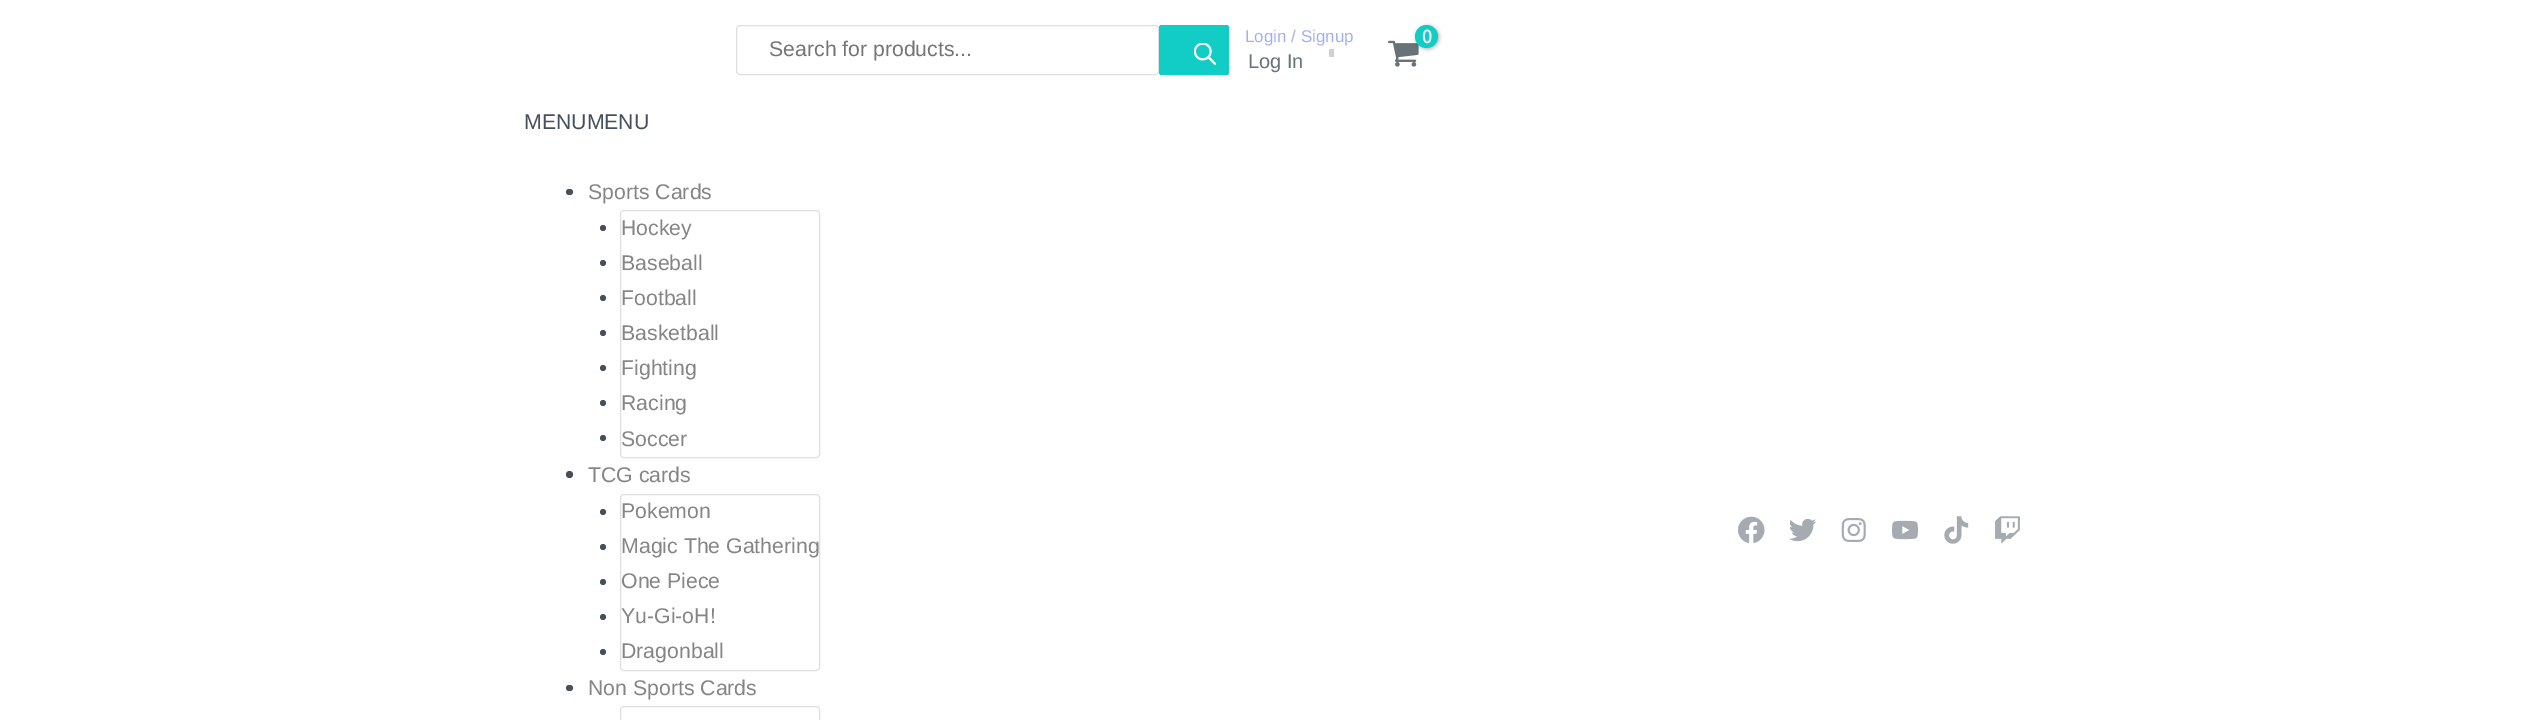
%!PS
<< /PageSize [2547 720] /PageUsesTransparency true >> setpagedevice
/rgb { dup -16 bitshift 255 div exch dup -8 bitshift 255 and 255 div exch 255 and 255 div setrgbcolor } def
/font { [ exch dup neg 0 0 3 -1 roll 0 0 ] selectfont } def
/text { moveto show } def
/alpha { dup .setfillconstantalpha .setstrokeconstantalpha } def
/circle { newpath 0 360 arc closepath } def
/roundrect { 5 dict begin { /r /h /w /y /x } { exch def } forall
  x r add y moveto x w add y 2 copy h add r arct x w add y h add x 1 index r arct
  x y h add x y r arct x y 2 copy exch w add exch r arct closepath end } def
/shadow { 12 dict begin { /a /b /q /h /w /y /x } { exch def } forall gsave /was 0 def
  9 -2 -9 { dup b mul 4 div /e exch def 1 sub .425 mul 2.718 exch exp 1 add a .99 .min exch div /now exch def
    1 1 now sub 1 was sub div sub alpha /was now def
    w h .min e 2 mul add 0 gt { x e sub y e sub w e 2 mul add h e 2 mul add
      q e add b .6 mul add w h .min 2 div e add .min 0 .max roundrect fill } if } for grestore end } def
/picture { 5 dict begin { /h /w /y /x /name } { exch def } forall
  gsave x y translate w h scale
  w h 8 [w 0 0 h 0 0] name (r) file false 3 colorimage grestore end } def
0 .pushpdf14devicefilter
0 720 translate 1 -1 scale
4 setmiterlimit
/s1 { /LiberationSans-Regular 21.25 font 16#757575 rgb } def
/s2 { /LiberationSans-Regular 17 font 16#A3AFEF rgb } def
/s3 { /LiberationSans-Regular 20 font 16#677279 rgb } def
/s4 { /LiberationSans-Regular 21.25 font 16#454F5E rgb } def
/s5 { /LiberationSans-Regular 21.25 font 16#858585 rgb } def
16#FFFFFF rgb
0 0 2547 720 rectfill
16#DFDFDF rgb
736.5 25.5 422 49 3.5 roundrect stroke
s1
(Search for products...) 769 56 text
16#11CDC6 rgb
1159 25 70 50 2.5 roundrect fill
(pic1.raw) 1194 43 22 22 picture
s2
(Login / Signup) 1245 42 text
s3
(Log In) 1248 68 text
(pic2.raw) 1388 40 31 27 picture
16#000000 rgb
1416 26 23 23 11.5 2 0.3 shadow
16#11CDC6 rgb
1426.5 36.5 11.5 circle fill
/SourceSansPro-Bold 20 font
16#F3F5F6 rgb
1422 43 moveto -1 0 (0) ashow
16#D0D0D0 rgb
1329 49 5 4 rectfill
1333 49 1 7 rectfill
1329 53 5 4 rectfill
s4
(MENUMENU) 524 129 text
566 189 7 6 3 roundrect fill
s5
(Sports Cards) 588 199 text
16#DFDFDF rgb
620.5 210.5 199 247 3.5 roundrect stroke
16#454F5E rgb
603 228 3 circle fill
s5
(Hockey) 621 235 text
16#454F5E rgb
603 263 3 circle fill
s5
(Baseball) 621 270 text
16#454F5E rgb
603 298 3 circle fill
s5
(Football) 621 305 text
16#454F5E rgb
603 333 3 circle fill
s5
(Basketball) 621 340 text
16#454F5E rgb
603 368 3 circle fill
s5
(Fighting) 621 375 text
16#454F5E rgb
603 403 3 circle fill
s5
(Racing) 621 410 text
16#454F5E rgb
603 438 3 circle fill
s5
(Soccer) 621 446 text
16#454F5E rgb
569.5 474.5 3.5 circle fill
s5
(TCG cards) 588 482 text
16#DFDFDF rgb
620.5 494.5 199 176 3.5 roundrect stroke
16#454F5E rgb
603 512 3 circle fill
s5
(Pokemon) 621 518 text
16#454F5E rgb
603 547 3 circle fill
s5
(Magic The Gathering) 621 553 text
16#454F5E rgb
603 582 3 circle fill
s5
(One Piece) 621 588 text
16#454F5E rgb
603 617 3 circle fill
s5
(Yu-Gi-oH!) 621 623 text
16#454F5E rgb
603 652 3 circle fill
s5
(Dragonball) 621 658 text
16#454F5E rgb
566 685 7 6 3 roundrect fill
s5
(Non Sports Cards) 588 695 text
16#DFDFDF rgb
620.5 706.5 199 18 3.5 roundrect stroke
(pic3.raw) 1738 516 27 28 picture
(pic4.raw) 1789 518 27 24 picture
(pic5.raw) 1841 517 25 25 picture
(pic6.raw) 1892 520 26 20 picture
(pic7.raw) 1944 516 25 28 picture
(pic8.raw) 1995 516 25 28 picture
.poppdf14devicefilter showpage
